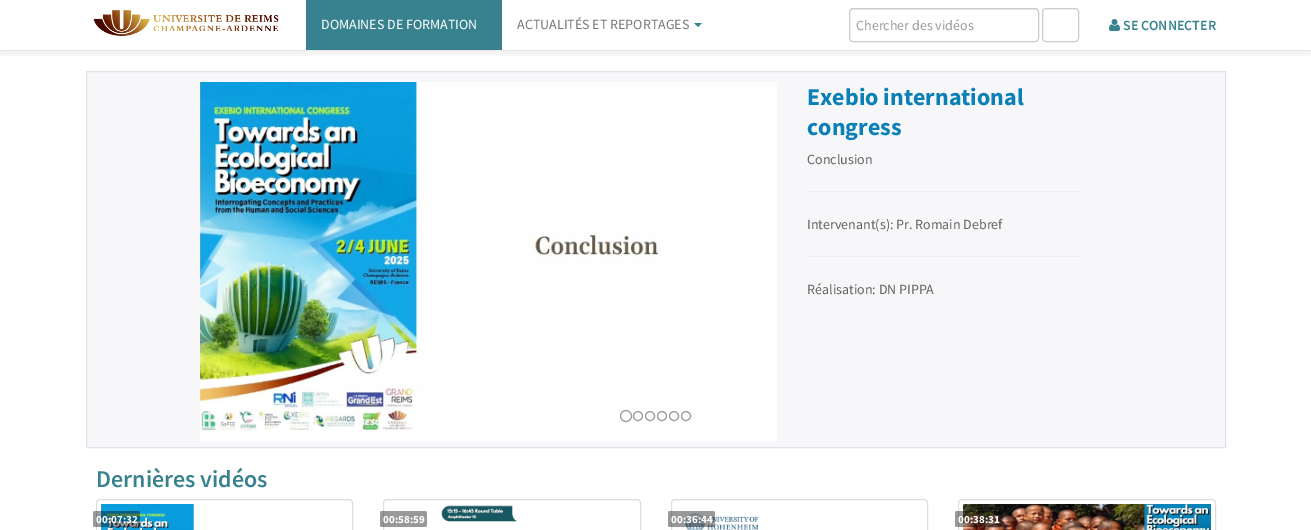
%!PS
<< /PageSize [1311 530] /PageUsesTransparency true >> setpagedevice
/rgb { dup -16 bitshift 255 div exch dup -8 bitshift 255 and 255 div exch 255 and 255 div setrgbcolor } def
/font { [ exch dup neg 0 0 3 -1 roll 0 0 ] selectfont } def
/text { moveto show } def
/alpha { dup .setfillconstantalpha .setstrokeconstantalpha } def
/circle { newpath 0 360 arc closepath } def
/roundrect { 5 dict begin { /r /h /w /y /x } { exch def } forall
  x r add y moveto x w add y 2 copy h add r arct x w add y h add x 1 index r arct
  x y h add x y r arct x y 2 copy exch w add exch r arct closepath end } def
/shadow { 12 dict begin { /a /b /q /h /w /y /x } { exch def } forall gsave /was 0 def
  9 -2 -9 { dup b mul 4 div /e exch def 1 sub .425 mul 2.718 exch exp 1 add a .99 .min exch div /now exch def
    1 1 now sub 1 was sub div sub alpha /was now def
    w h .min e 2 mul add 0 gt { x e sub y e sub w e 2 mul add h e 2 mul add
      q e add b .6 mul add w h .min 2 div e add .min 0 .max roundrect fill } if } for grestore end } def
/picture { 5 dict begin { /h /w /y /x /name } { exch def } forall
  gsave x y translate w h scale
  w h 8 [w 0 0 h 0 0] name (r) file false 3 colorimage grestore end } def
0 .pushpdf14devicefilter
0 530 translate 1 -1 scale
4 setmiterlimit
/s1 { /SourceSansPro-Regular 14 font 16#FFFFFF rgb } def
/s2 { /SourceSansPro-Regular 14 font 16#777777 rgb } def
/s3 { /SourceSansPro-Regular 14 font 16#999999 rgb } def
/s4 { /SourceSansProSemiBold-SemiBold 14 font 16#37828E rgb } def
/s5 { /SourceSansPro-Bold 24 font 16#0B80B7 rgb } def
/s6 { /SourceSansPro-Regular 14 font 16#616161 rgb } def
/s7 { /SourceSansProSemiBold-SemiBold 24 font 16#37828E rgb } def
/s8 { /SourceSansPro-Bold 11 font 16#FFFFFF rgb } def
16#FFFFFF rgb
0 0 1311 530 rectfill
gsave
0 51 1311 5 rectclip
16#000000 rgb
0 1 1311 51 0 5 0.1 shadow
grestore
16#E7E7E7 rgb
0 50 1311 1 rectfill
(pic1.raw) 93 10 186 26 picture
16#37828E rgb
306 0 196 50 rectfill
s1
(DOMAINES DE FORMATION) 321 29 text
s2
(ACTUALITÉS ET REPORTAGES) 517 29 text
16#37828E rgb
694 23 moveto 702 23 lineto 698 27 lineto closepath fill
16#ECECEC rgb
853 10 moveto 1035 10 lineto 1037 10 1038 11 1038 13 curveto 1038 11 1037 9 1035 9 curveto 853 9 lineto 851 9 850 11 850 13 curveto 850 11 851 10 853 10 curveto closepath fill
16#CCCCCC rgb
849.5 8.5 189 33 3.5 roundrect stroke
s3
(Chercher des vidéos) 856 30 text
16#CCCCCC rgb
1042.5 8.5 36 33 3.5 roundrect stroke
(pic2.raw) 1109 19 11 12 picture
s4
(SE CONNECTER) 1123 30 text
16#F7F7F9 rgb
86.5 71.5 moveto 1225.5 71.5 lineto 1225.5 447.5 lineto 86.5 447.5 lineto closepath gsave fill grestore
16#E1E1E8 rgb
stroke
(pic3.raw) 200 82 577 360 picture
s5
(Exebio international) 807 105 text
(congress) 807 135 text
s6
(Conclusion) 807 164 text
16#EEEEEE rgb
807 191 274 1 rectfill
s6
(Intervenant\(s\): Pr. Romain Debref) 807 229 text
16#EEEEEE rgb
807 256 274 1 rectfill
s6
(Réalisation: DN PIPPA) 807 294 text
16#999999 rgb
626 416 5.5 circle stroke
638 416 4.5 circle stroke
650 416 4.5 circle stroke
662 416 4.5 circle stroke
674 416 4.5 circle stroke
686 416 4.5 circle stroke
s7
(Dernières vidéos) 96 487 text
16#DDDDDD rgb
96.5 499.5 256 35 3.5 roundrect stroke
(pic4.raw) 101 504 94 26 picture
0.4 alpha
16#000000 rgb
93 511 47 16 2 roundrect fill
1 alpha
s8
(00:07:32) 96 523 text
16#DDDDDD rgb
383.5 499.5 257 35 3.5 roundrect stroke
0.4 alpha
16#000000 rgb
380 511 47 16 2 roundrect fill
1 alpha
s8
(00:58:59) 383 523 text
(pic5.raw) 441 505 76 17 picture
16#DDDDDD rgb
671.5 499.5 256 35 3.5 roundrect stroke
(pic6.raw) 685 513 74 17 picture
0.4 alpha
16#000000 rgb
668 511 47 16 2 roundrect fill
1 alpha
s8
(00:36:44) 671 523 text
16#DDDDDD rgb
958.5 499.5 257 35 3.5 roundrect stroke
(pic7.raw) 963 504 248 26 picture
0.4 alpha
16#000000 rgb
955 511 47 16 2 roundrect fill
1 alpha
s8
(00:38:31) 958 523 text
.poppdf14devicefilter showpage
